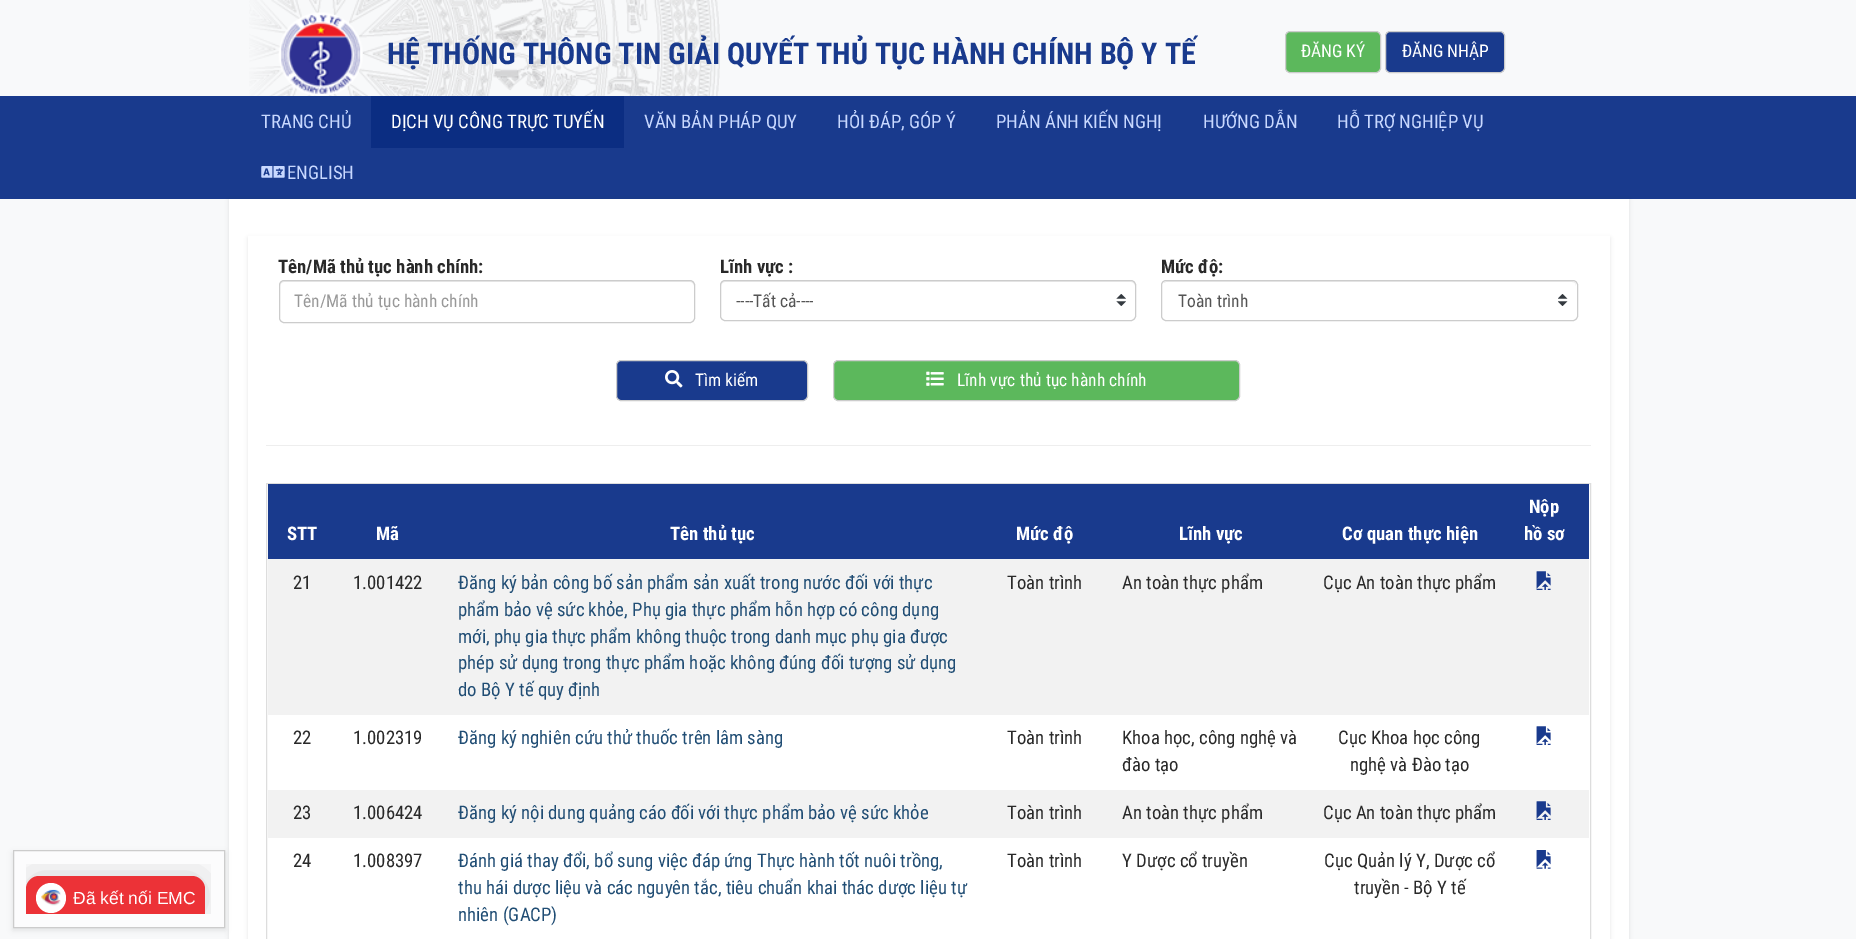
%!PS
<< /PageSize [1856 939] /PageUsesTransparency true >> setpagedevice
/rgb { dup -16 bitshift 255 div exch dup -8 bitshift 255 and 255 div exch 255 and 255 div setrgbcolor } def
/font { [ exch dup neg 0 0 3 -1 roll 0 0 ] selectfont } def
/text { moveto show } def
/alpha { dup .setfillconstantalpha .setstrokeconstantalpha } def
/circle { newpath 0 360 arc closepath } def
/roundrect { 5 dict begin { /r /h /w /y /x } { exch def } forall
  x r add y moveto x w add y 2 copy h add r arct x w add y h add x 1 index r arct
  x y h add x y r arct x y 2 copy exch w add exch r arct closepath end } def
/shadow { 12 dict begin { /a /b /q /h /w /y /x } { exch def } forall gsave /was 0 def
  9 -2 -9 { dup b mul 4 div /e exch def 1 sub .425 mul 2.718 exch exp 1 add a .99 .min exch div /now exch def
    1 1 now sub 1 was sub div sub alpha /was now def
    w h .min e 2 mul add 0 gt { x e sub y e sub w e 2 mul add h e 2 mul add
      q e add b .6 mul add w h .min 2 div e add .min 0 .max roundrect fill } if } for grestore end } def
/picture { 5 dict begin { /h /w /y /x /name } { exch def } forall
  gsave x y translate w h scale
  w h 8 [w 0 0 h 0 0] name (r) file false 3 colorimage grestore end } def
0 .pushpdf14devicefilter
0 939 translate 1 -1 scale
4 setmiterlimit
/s1 { /RobotoCondensed-Bold 30 font 16#193A8D rgb } def
/s2 { /RobotoCondensed-Regular 17.5 font 16#FFFFFF rgb } def
/s3 { /RobotoCondensed-Regular 18.75 font 16#C8D8FF rgb } def
/s4 { /RobotoCondensed-Regular 18.75 font 16#FFFFFF rgb } def
/s5 { /LiberationSans-Regular 17.5 font 16#FFFFFF rgb } def
/s6 { /RobotoCondensed-Bold 18.75 font 16#292929 rgb } def
/s7 { /RobotoCondensed-Regular 17.5 font 16#999999 rgb } def
/s8 { /RobotoCondensed-Regular 17.5 font 16#555555 rgb } def
/s9 { /RobotoCondensed-Bold 18.75 font 16#FFFFFF rgb } def
/s10 { /RobotoCondensed-Regular 18.75 font 16#292929 rgb } def
/s11 { /RobotoCondensed-Regular 18.75 font 16#204D74 rgb } def
16#F8F9FA rgb
0 0 1856 939 rectfill
(pic1.raw) 249 0 471 96 picture
(pic2.raw) 278 12 85 84 picture
s1
(HỆ THỐNG THÔNG TIN GIẢI QUYẾT THỦ TỤC HÀNH CHÍNH BỘ Y TẾ) 387 64 text
16#5CB85C rgb
1285.5 31.5 95 41 4.5 roundrect gsave fill grestore
16#CCCCCC rgb
stroke
s2
(ĐĂNG KÝ) 1301 57 text
16#193A8D rgb
1385.5 31.5 119 41 4.5 roundrect gsave fill grestore
16#CCCCCC rgb
stroke
s2
(ĐĂNG NHẬP) 1402 57 text
16#193A8D rgb
0 96 1856 103 rectfill
s3
(TRANG CHỦ) 261 128 text
16#0B2D82 rgb
371 96 253 52 rectfill
s4
(DỊCH VỤ CÔNG TRỰC TUYẾN) 391 128 text
s3
(VĂN BẢN PHÁP QUY) 644 128 text
(HỎI ĐÁP, GÓP Ý) 837 128 text
(PHẢN ÁNH KIẾN NGHỊ) 996 128 text
(HƯỚNG DẪN) 1203 128 text
(HỖ TRỢ NGHIỆP VỤ) 1337 128 text
(pic3.raw) 261 166 24 12 picture
(ENGLISH) 287 179 text
16#000000 rgb
229 200 1400 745 0 2 0.1 shadow
16#FFFFFF rgb
229 199 1400 740 rectfill
gsave
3 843 moveto 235 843 lineto 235 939 lineto 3 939 lineto closepath 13 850 moveto 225 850 lineto 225 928 lineto 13 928 lineto closepath eoclip newpath
16#000000 rgb
13 853 212 77 0 3 0.1 shadow
grestore
0.5 alpha
13.5 850.5 moveto 224.5 850.5 lineto 224.5 927.5 lineto 13.5 927.5 lineto closepath fill
1 alpha
16#CCCCCC rgb
13.5 850.5 moveto 224.5 850.5 lineto 224.5 927.5 lineto 13.5 927.5 lineto closepath stroke
gsave
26 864 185 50 rectclip
16#000000 rgb
26 875 179 43 13 19 0.15 shadow
grestore
16#EC3237 rgb
39 876 moveto 192 876 lineto 199 876 205 882 205 889 curveto 205 914 lineto 26 914 lineto 26 889 lineto 26 882 32 876 39 876 curveto closepath fill
16#FFFFFF rgb
51 898 15 circle fill
(pic4.raw) 41 889 20 17 picture
s5
(Đã kết nối EMC) 73 904 text
gsave
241 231 moveto 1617 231 lineto 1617 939 lineto 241 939 lineto closepath 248 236 moveto 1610 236 lineto 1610 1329 lineto 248 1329 lineto closepath eoclip newpath
16#000000 rgb
248 238 1362 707 0 2 0.1 shadow
grestore
s6
(Tên/Mã thủ tục hành chính:) 278 273 text
16#ECECEC rgb
284 282 moveto 690 282 lineto 692 282 694 284 694 286 curveto 694 285 lineto 694 283 692 281 690 281 curveto 284 281 lineto 282 281 280 283 280 285 curveto 280 286 lineto 280 284 282 282 284 282 curveto closepath fill
16#CCCCCC rgb
279.5 280.5 415 42 4.5 roundrect stroke
s7
(Tên/Mã thủ tục hành chính) 294 307 text
s6
(Lĩnh vực :) 720 273 text
(pic5.raw) 1116 294 10 12 picture
16#ECECEC rgb
725 282 moveto 1131 282 lineto 1133 282 1135 284 1135 286 curveto 1135 285 lineto 1135 283 1133 281 1131 281 curveto 725 281 lineto 723 281 721 283 721 285 curveto 721 286 lineto 721 284 723 282 725 282 curveto closepath fill
16#CCCCCC rgb
720.5 280.5 415 40 4.5 roundrect stroke
s8
(----Tất cả----) 736 307 text
s6
(Mức độ:) 1161 273 text
(pic6.raw) 1558 294 10 12 picture
16#ECECEC rgb
1166 282 moveto 1572 282 lineto 1575 282 1576 284 1576 286 curveto 1576 285 lineto 1576 283 1574 281 1572 281 curveto 1167 281 lineto 1166 281 1164 282 1164 283 curveto closepath fill
16#CCCCCC rgb
1161.5 280.5 416 40 4.5 roundrect stroke
s8
(Toàn trình) 1178 307 text
16#193A8D rgb
616.5 360.5 191 40 4.5 roundrect gsave fill grestore
16#CCCCCC rgb
stroke
(pic7.raw) 665 370 18 18 picture
s2
(Tìm kiếm) 695 386 text
16#5CB85C rgb
833.5 360.5 406 40 4.5 roundrect gsave fill grestore
16#CCCCCC rgb
stroke
(pic8.raw) 926 371 18 15 picture
s2
(Lĩnh vực thủ tục hành chính) 957 386 text
16#EEEEEE rgb
266 445 1325 1 rectfill
16#DDDDDD rgb
266.5 483.5 1324 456 rectstroke
16#193A8D rgb
268 484 1321 75 rectfill
s9
(STT) 287 540 text
(Mã) 376 540 text
(Tên thủ tục) 670 540 text
(Mức độ) 1016 540 text
(Lĩnh vực) 1179 540 text
(Cơ quan thực hiện) 1342 540 text
(Nộp) 1529 513 text
(hồ sơ) 1524 540 text
16#F2F2F2 rgb
268 559 1321 156 rectfill
s10
(21) 293 589 text
(1.001422) 353 589 text
s11
(Đăng ký bản công bố sản phẩm sản xuất trong nước đối với thực) 458 589 text
(phẩm bảo vệ sức khỏe, Phụ gia thực phẩm hỗn hợp có công dụng) 458 616 text
(mới, phụ gia thực phẩm không thuộc trong danh mục phụ gia được) 458 643 text
(phép sử dụng trong thực phẩm hoặc không đúng đối tượng sử dụng) 458 669 text
(do Bộ Y tế quy định) 458 696 text
s10
(Toàn trình) 1007 589 text
(An toàn thực phẩm) 1122 589 text
(Cục An toàn thực phẩm) 1323 589 text
(pic9.raw) 1536 571 15 19 picture
(22) 293 744 text
(1.002319) 353 744 text
s11
(Đăng ký nghiên cứu thử thuốc trên lâm sàng) 458 744 text
s10
(Toàn trình) 1007 744 text
(Khoa học, công nghệ và) 1122 744 text
(đào tạo) 1122 771 text
(Cục Khoa học công) 1338 744 text
(nghệ và Đào tạo) 1350 771 text
(pic10.raw) 1536 726 15 19 picture
16#F2F2F2 rgb
268 790 1321 48 rectfill
s10
(23) 293 819 text
(1.006424) 353 819 text
s11
(Đăng ký nội dung quảng cáo đối với thực phẩm bảo vệ sức khỏe) 458 819 text
s10
(Toàn trình) 1007 819 text
(An toàn thực phẩm) 1122 819 text
(Cục An toàn thực phẩm) 1323 819 text
(pic9.raw) 1536 801 15 19 picture
(24) 293 867 text
(1.008397) 353 867 text
s11
(Đánh giá thay đổi, bổ sung việc đáp ứng Thực hành tốt nuôi trồng,) 458 867 text
(thu hái dược liệu và các nguyên tắc, tiêu chuẩn khai thác dược liệu tự) 458 894 text
(nhiên \(GACP\)) 458 921 text
s10
(Toàn trình) 1007 867 text
(Y Dược cổ truyền) 1122 867 text
(Cục Quản lý Y, Dược cổ) 1324 867 text
(truyền - Bộ Y tế) 1354 894 text
(pic11.raw) 1536 850 15 19 picture
.poppdf14devicefilter showpage
